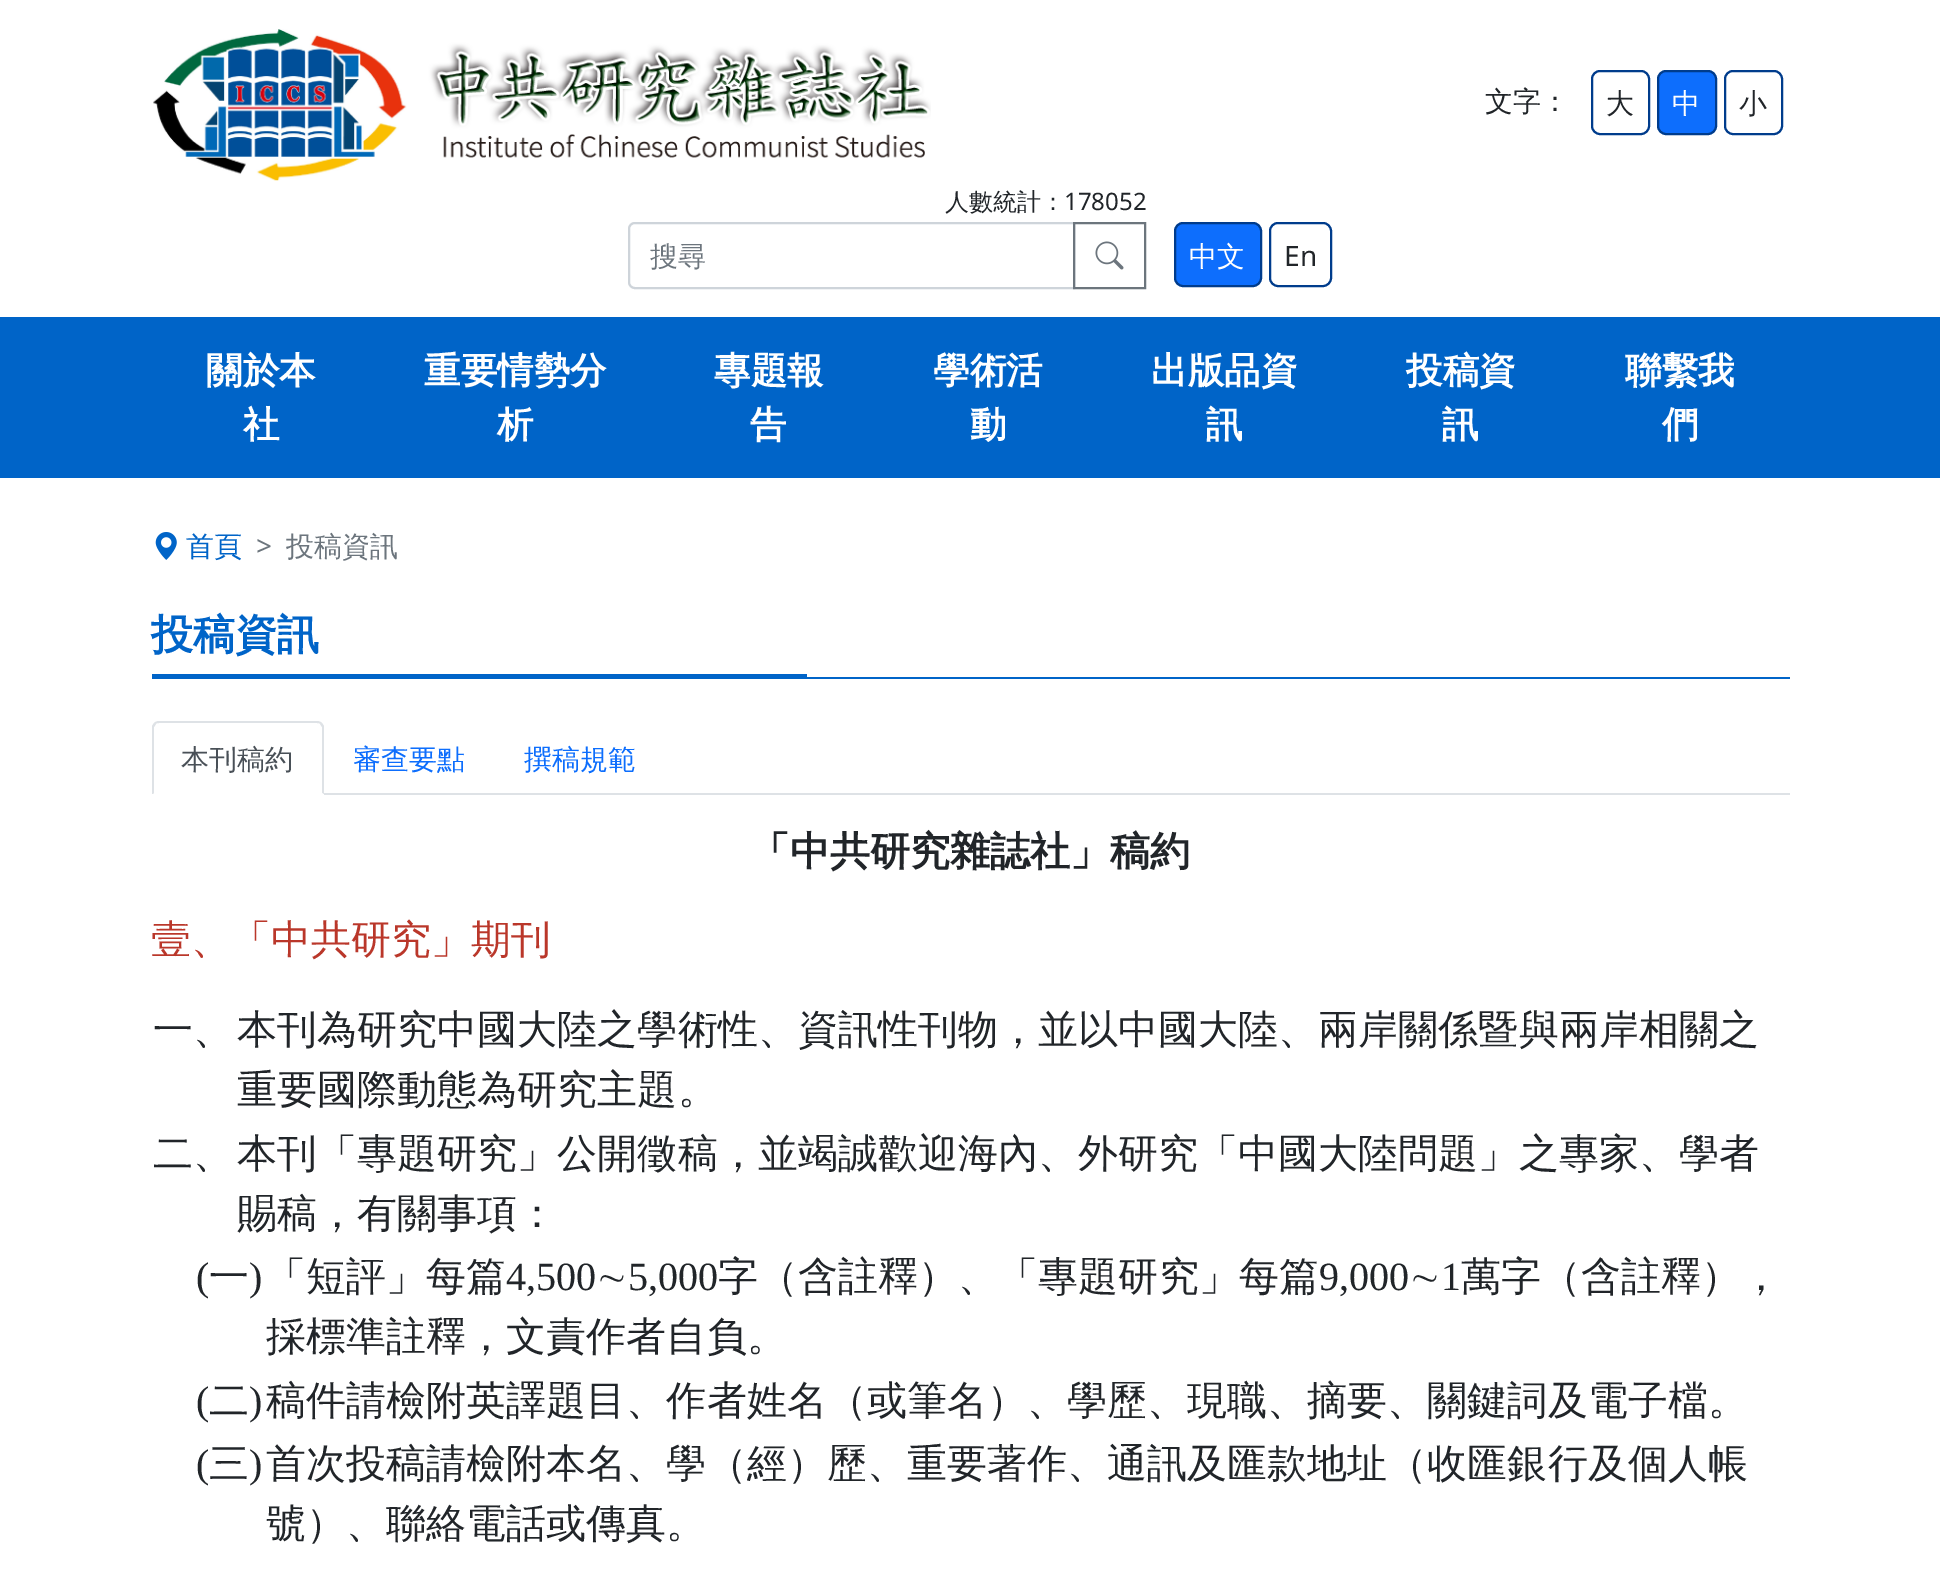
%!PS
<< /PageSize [1940 1571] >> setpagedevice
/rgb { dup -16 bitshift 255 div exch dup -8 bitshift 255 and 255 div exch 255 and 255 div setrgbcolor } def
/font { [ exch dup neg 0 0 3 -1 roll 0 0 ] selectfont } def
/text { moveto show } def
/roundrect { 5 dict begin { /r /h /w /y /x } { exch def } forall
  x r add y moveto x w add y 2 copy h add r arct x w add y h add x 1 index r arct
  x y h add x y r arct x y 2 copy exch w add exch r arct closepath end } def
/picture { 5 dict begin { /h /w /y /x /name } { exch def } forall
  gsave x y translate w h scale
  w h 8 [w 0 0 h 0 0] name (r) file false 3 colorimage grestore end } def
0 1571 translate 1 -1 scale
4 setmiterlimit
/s1 { /WenQuanYiZenHei-Medium 28 font 16#212529 rgb } def
/s2 { /WenQuanYiZenHei-Medium 28 font 16#FFFFFF rgb } def
/s3 { /WenQuanYiZenHei-Medium 24 font 16#212529 rgb } def
/s4 { /NotoSans-Regular 24 font 16#212529 rgb } def
/s5 { /WenQuanYiZenHei-Medium 28 font 16#6C757D rgb } def
/s6 { /NotoSans-Regular 28 font 16#212529 rgb } def
/s7 { /WenQuanYiZenHei-Bold 36.5 font 16#FFFFFF rgb } def
/s8 { /WenQuanYiZenHei-Medium 28 font 16#0064C8 rgb } def
/s9 { /NotoSans-Regular 28 font 16#6C757D rgb } def
/s10 { /WenQuanYiZenHei-Bold 42 font 16#0064C8 rgb } def
/s11 { /WenQuanYiZenHei-Medium 28 font 16#495057 rgb } def
/s12 { /WenQuanYiZenHei-Medium 28 font 16#0D6EFD rgb } def
/s13 { /WenQuanYiZenHei-Bold 40.05 font 16#212529 rgb } def
/s14 { /WenQuanYiZenHei-Medium 40.05 font 16#BA372A rgb } def
/s15 { /WenQuanYiZenHei-Medium 40.05 font 16#212529 rgb } def
/s16 { /LiberationSerif-Regular 40.05 font 16#212529 rgb } def
16#FFFFFF rgb
0 0 1940 1571 rectfill
(pic1.raw) 153 29 778 152 picture
s1
(文字：) 1485 111 text
16#003C8C rgb
2 setlinewidth
1592 71 57 63 8 roundrect stroke
s1
(大) 1606 113 text
16#0D6EFD rgb
1658 71 58 63 8 roundrect gsave fill grestore
16#003C8C rgb
stroke
s2
(中) 1672 113 text
16#003C8C rgb
1725 71 57 63 8 roundrect stroke
s1
(小) 1739 113 text
s3
(人數統計：) 945 210 text
s4
(178052) 1064 210 text
16#CED4DA rgb
635 223 moveto 1074 223 lineto 1074 288 lineto 635 288 lineto 631.5 288 629 285.5 629 282 curveto 629 229 lineto 629 225.5 631.5 223 635 223 curveto closepath stroke
s5
(搜尋) 650 266 text
1074 223 71 65 rectstroke
(pic2.raw) 1095 241 29 29 picture
16#0D6EFD rgb
1175 223 86 63 8 roundrect gsave fill grestore
16#003C8C rgb
stroke
s2
(中文) 1189 266 text
16#003C8C rgb
1270 223 61 63 8 roundrect stroke
s6
(En) 1284 266 text
16#0064C8 rgb
0 317 1940 161 rectfill
s7
(關於本) 206 383 text
(社) 243 437 text
(重要情勢分) 424 383 text
(析) 497 437 text
(專題報) 714 383 text
(告) 750 437 text
(學術活) 933 383 text
(動) 970 437 text
(出版品資) 1151 383 text
(訊) 1206 437 text
(投稿資) 1406 383 text
(訊) 1442 437 text
(聯繫我) 1625 383 text
(們) 1662 437 text
(pic3.raw) 155 532 22 28 picture
s8
(首頁) 186 556 text
s9
(>) 256 556 text
s5
(投稿資訊) 286 556 text
16#0064C8 rgb
152 677 1638 2 rectfill
s10
(投稿資訊) 151 649 text
152 674 655 3 rectfill
16#DEE2E6 rgb
324 793 1466 2 rectfill
159 721 moveto 157 721 155 722 154 723 curveto 156 724 lineto 156 723 158 723 159 723 curveto 317 723 lineto 318 723 320 723 320 724 curveto 322 723 lineto 321 722 319 721 317 721 curveto closepath fill
324 794 moveto 322 793 lineto 322 727 lineto 320 724 lineto 322 723 lineto 324 726 lineto closepath fill
16#FFFFFF rgb
323 794 moveto 153 794 lineto 154 793 lineto 322 793 lineto closepath fill
16#DEE2E6 rgb
152 726 moveto 154 723 lineto 156 724 lineto 154 727 lineto 154 793 lineto 153 794 lineto 152 794 lineto closepath fill
s11
(本刊稿約) 181 769 text
s12
(審查要點) 353 769 text
(撰稿規範) 524 769 text
s13
(「中共研究雜誌社」稿約) 750 865 text
s14
(壹、「中共研究」期刊) 151 953 text
s15
(一、) 153 1043 text
(本刊為研究中國大陸之學術性、資訊性刊物，並以中國大陸、兩岸關係暨與兩岸相關之) 237 1043 text
(重要國際動態為研究主題。) 237 1103 text
(二、) 153 1167 text
(本刊「專題研究」公開徵稿，並竭誠歡迎海內、外研究「中國大陸問題」之專家、學者) 237 1167 text
(賜稿，有關事項：) 237 1227 text
s16
(\() 196 1290 text
s15
(一) 209 1290 text
s16
(\)) 249 1290 text
s15
(「短評」每篇) 266 1290 text
s16
(4,500) 506 1290 text
s15
(∼) 596 1290 text
s16
(5,000) 628 1290 text
s15
(字（含註釋）、「專題研究」每篇) 718 1290 text
s16
(9,000) 1319 1290 text
s15
(∼) 1409 1290 text
s16
(1) 1441 1290 text
s15
(萬字（含註釋），) 1461 1290 text
(採標準註釋，文責作者自負。) 266 1350 text
s16
(\() 196 1414 text
s15
(二) 209 1414 text
s16
(\)) 249 1414 text
s15
(稿件請檢附英譯題目、作者姓名（或筆名）、學歷、現職、摘要、關鍵詞及電子檔。) 266 1414 text
s16
(\() 196 1477 text
s15
(三) 209 1477 text
s16
(\)) 249 1477 text
s15
(首次投稿請檢附本名、學（經）歷、重要著作、通訊及匯款地址（收匯銀行及個人帳) 266 1477 text
(號）、聯絡電話或傳真。) 266 1537 text
showpage
